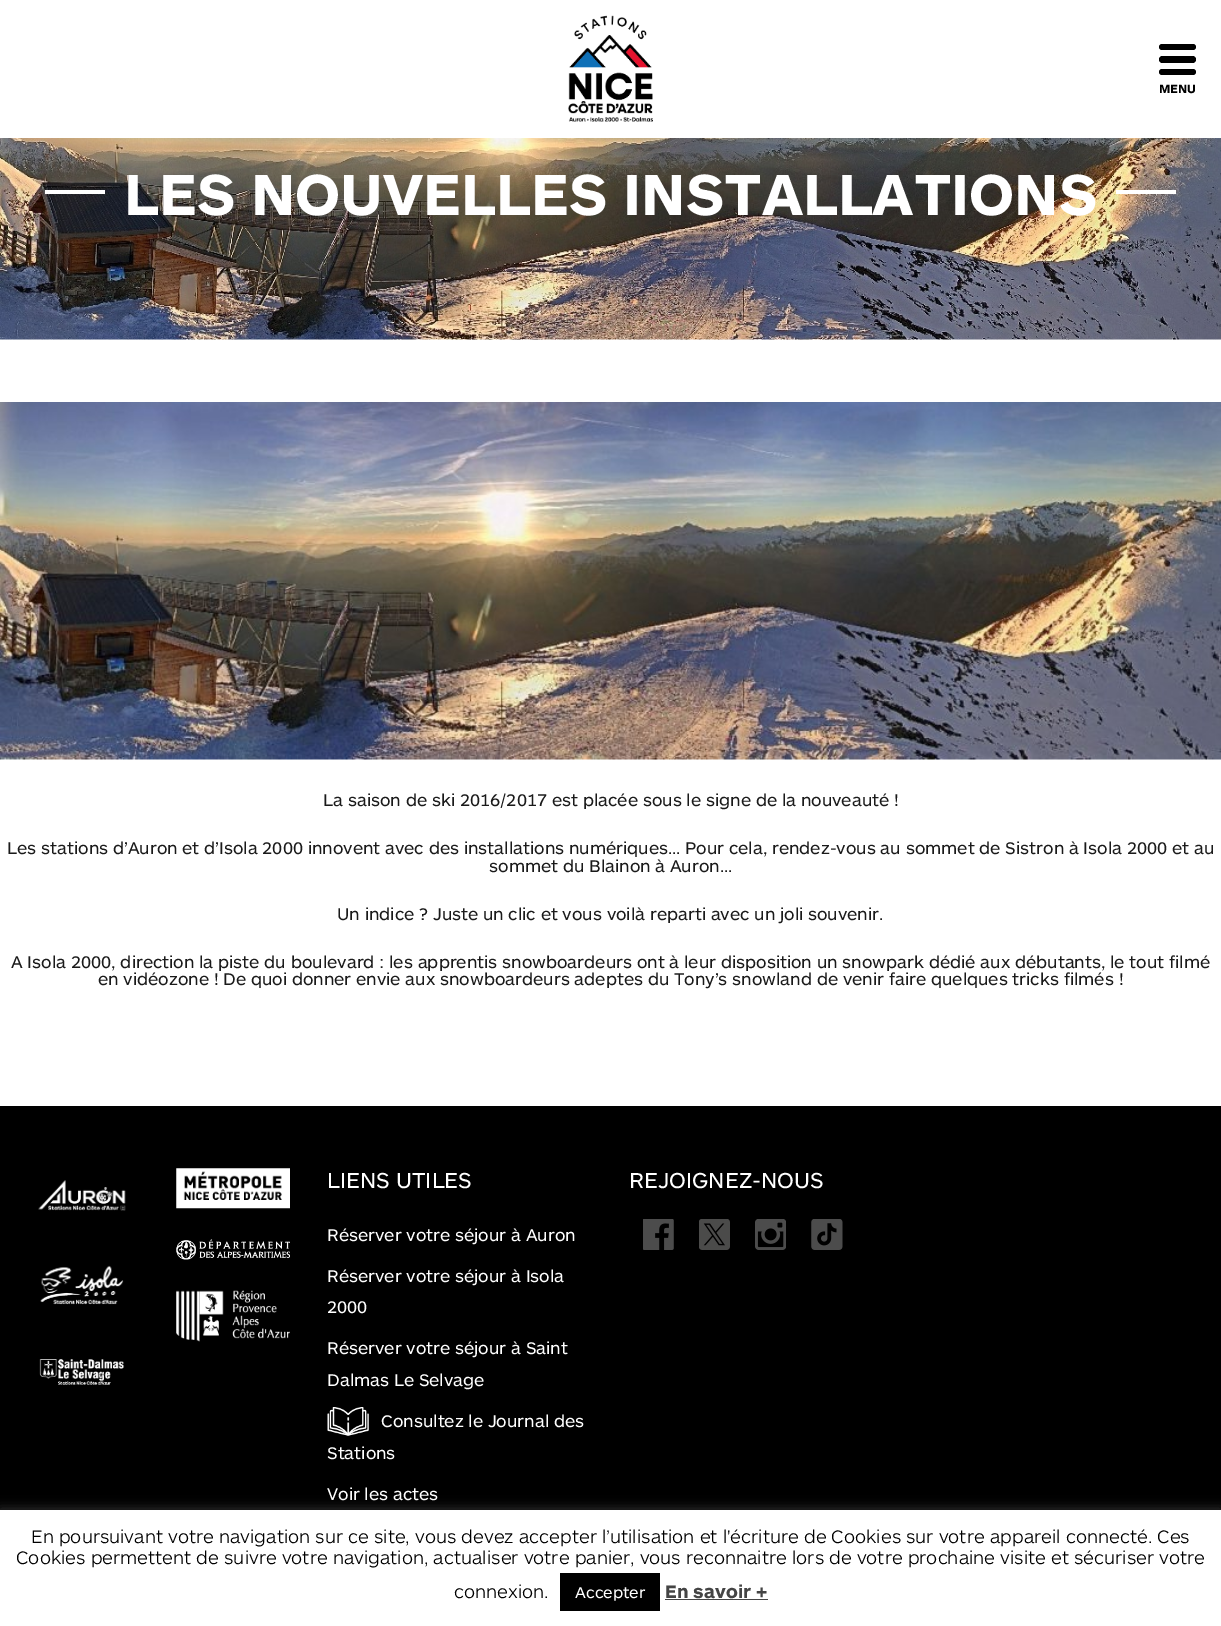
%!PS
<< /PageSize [1221 1626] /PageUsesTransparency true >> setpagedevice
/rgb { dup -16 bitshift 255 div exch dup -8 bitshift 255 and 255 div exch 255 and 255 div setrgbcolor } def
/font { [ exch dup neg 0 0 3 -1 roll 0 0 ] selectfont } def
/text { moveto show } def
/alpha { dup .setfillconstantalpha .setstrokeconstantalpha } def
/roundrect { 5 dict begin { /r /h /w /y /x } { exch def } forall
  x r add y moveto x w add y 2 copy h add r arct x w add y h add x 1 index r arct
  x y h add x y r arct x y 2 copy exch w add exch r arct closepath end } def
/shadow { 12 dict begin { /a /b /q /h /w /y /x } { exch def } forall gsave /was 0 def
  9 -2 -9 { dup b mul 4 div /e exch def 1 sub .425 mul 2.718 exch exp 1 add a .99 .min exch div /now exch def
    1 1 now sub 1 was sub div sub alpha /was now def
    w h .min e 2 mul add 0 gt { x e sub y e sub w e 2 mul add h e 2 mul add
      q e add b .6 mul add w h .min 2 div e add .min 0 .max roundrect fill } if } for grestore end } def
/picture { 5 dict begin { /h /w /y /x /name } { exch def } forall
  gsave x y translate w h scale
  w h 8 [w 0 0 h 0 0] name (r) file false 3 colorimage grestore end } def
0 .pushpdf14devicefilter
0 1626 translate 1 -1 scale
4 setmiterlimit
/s1 { /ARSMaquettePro-Bold 12.5 font 16#000000 rgb } def
/s2 { /ARSMaquettePro-Bold 60 font 16#FFFFFF rgb } def
/s3 { /ARSMaquettePro-Regular 17.5 font 16#1A1A1A rgb } def
/s4 { /ARSMaquettePro-Regular 22.5 font 16#FFFFFF rgb } def
/s5 { /ARSMaquettePro-Regular 17.5 font 16#FFFFFF rgb } def
/s6 { /ARSMaquettePro-Light 18.75 font 16#000000 rgb } def
/s7 { /ARSMaquettePro-Regular 16.25 font 16#FFFFFF rgb } def
/s8 { /ARSMaquettePro-Bold 18.75 font 16#444444 rgb } def
16#FFFFFF rgb
0 0 1221 1626 rectfill
(pic1.raw) 568 15 85 107 picture
16#000000 rgb
1159 44 37 6 3 roundrect fill
1159 56 37 7 3.5 roundrect fill
1159 69 37 6 3 roundrect fill
s1
(MENU) 1159 93 text
(pic2.raw) 0 138 1221 202 picture
16#FFFFFF rgb
45 190 60 4 rectfill
s2
(LES NOUVELLES INSTALLATIONS) 124 215 text
1116 190 60 4 rectfill
(pic3.raw) 0 402 1221 358 picture
s3
(La saison de ski 2016/2017 est placée sous le signe de la nouveauté !) 323 806 text
(Les stations d’Auron et d’Isola 2000 innovent avec des installations numériques… Pour cela, rendez-vous au sommet de Sistron à Isola 2000 et au) 7 854 text
(sommet du Blainon à Auron…) 489 872 text
(Un indice ? Juste un clic et vous voilà reparti avec un joli souvenir.) 337 920 text
(A Isola 2000, direction la piste du boulevard : les apprentis snowboardeurs ont à leur disposition un snowpark dédié aux débutants, le tout filmé) 11 968 text
(en vidéozone ! De quoi donner envie aux snowboardeurs adeptes du Tony’s snowland de venir faire quelques tricks filmés !) 98 985 text
16#000000 rgb
0 1106 1221 404 rectfill
(pic4.raw) 38 1180 88 31 picture
(pic5.raw) 40 1265 84 40 picture
(pic6.raw) 39 1359 86 26 picture
(pic7.raw) 176 1168 114 41 picture
(pic8.raw) 176 1239 114 21 picture
(pic9.raw) 176 1290 114 52 picture
s4
(LIENS UTILES) 327 1188 text
s5
(Réserver votre séjour à Auron) 327 1241 text
(Réserver votre séjour à Isola) 327 1282 text
(2000) 327 1313 text
(Réserver votre séjour à Saint) 327 1354 text
(Dalmas Le Selvage) 327 1386 text
(pic10.raw) 327 1407 42 29 picture
(Consultez le Journal des) 381 1427 text
(Stations) 327 1459 text
(Voir les actes) 327 1500 text
s4
(REJOIGNEZ-NOUS) 629 1188 text
(pic11.raw) 643 1219 31 31 picture
(pic12.raw) 699 1219 31 31 picture
(pic13.raw) 755 1219 31 31 picture
(pic14.raw) 811 1219 32 31 picture
16#ACABAB rgb
0 1509 1221 116 0 6 0.3 shadow
16#FFFFFF rgb
0 1510 1221 116 rectfill
s6
(En poursuivant votre navigation sur ce site, vous devez accepter l’utilisation et l'écriture de Cookies sur votre appareil connecté. Ces) 31 1543 text
(Cookies permettent de suivre votre navigation, actualiser votre panier, vous reconnaitre lors de votre prochaine visite et sécuriser votre) 16 1564 text
(connexion.) 454 1598 text
560 1573 100 38 rectfill
s7
(Accepter) 575 1598 text
s8
(En savoir +) 665 1598 text
665 1599 103 1 rectfill
.poppdf14devicefilter showpage
